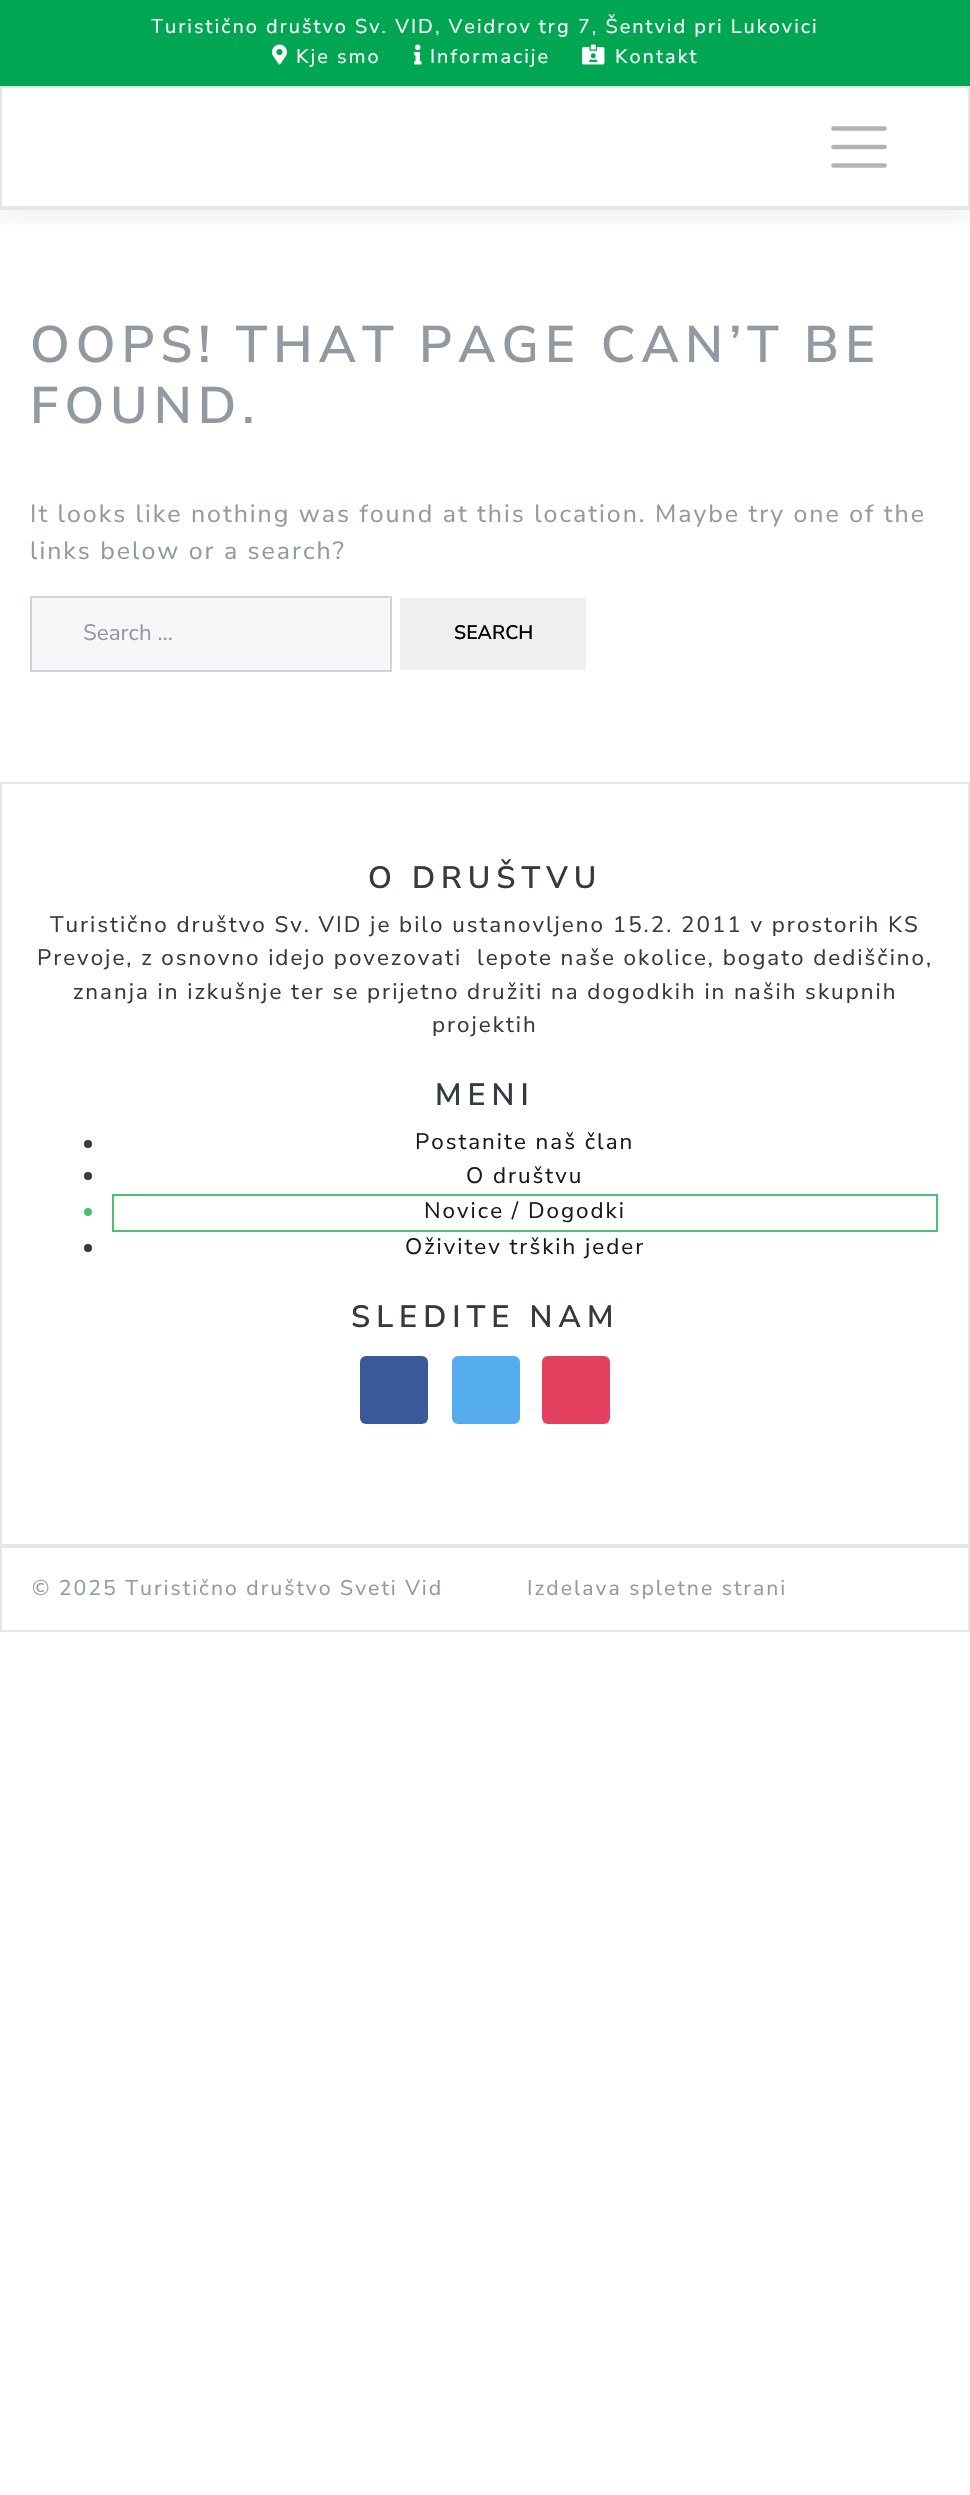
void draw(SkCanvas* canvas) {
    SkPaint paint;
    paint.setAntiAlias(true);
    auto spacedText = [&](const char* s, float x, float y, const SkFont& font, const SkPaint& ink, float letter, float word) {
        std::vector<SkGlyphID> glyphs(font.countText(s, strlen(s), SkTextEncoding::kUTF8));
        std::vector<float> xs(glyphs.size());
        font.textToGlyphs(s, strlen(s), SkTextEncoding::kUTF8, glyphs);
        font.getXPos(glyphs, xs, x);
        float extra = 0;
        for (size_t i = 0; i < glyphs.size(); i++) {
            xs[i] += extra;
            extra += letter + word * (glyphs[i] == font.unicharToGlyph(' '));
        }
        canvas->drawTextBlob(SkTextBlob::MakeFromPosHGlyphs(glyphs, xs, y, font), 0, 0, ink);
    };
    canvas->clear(0xFFFFFFFF);
    paint.setColor(0xFF00A651);
    canvas->drawRect(SkRect::MakeXYWH(0, 0, 970, 86), paint);
    SkFont font1(fontMgr->matchFamilyStyle("Nunito Sans", SkFontStyle::Normal()), 19.95f);
    font1.setSubpixel(true);
    paint.setColor(0xFFFFFFFF);
    spacedText("Turistično društvo Sv. VID, Veidrov trg 7, Šentvid pri Lukovici", 151, 33, font1, paint, 2, 0);
    canvas->drawImageRect(SkImages::DeferredFromEncodedData(SkData::MakeFromFileName("img1.png")), SkRect::MakeXYWH(272, 44, 15, 21), SkSamplingOptions());
    spacedText("Kje smo", 296, 63, font1, paint, 2, 0);
    canvas->drawImageRect(SkImages::DeferredFromEncodedData(SkData::MakeFromFileName("img2.png")), SkRect::MakeXYWH(414, 44, 8, 21), SkSamplingOptions());
    spacedText("Informacije", 430, 63, font1, paint, 2, 0);
    canvas->drawImageRect(SkImages::DeferredFromEncodedData(SkData::MakeFromFileName("img3.png")), SkRect::MakeXYWH(582, 44, 23, 21), SkSamplingOptions());
    spacedText("Kontakt", 615, 63, font1, paint, 2, 0);
    canvas->save();
    canvas->clipRect(SkRect::MakeXYWH(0, 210, 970, 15));
    paint.setColor(0x0D000000);
    paint.setMaskFilter(SkMaskFilter::MakeBlur(kNormal_SkBlurStyle, 13));
    canvas->drawRect(SkRect::MakeXYWH(0, 98, 970, 124), paint);
    paint.setMaskFilter(nullptr);
    canvas->restore();
    paint.setColor(0xFFE6E6E6);
    canvas->drawRect(SkRect::MakeXYWH(2, 206, 966, 2), paint);
    paint.setStyle(SkPaint::kStroke_Style);
    paint.setStrokeWidth(2);
    canvas->drawRect(SkRect::MakeXYWH(1, 87, 968, 122), paint);
    paint.setStrokeWidth(4.7f);
    paint.setStrokeCap(SkPaint::kRound_Cap);
    paint.setColor(0xFFB3B3B3);
    canvas->drawPath(SkPathBuilder().moveTo(833.5f, 128.5f).lineTo(884.5f, 128.5f).moveTo(833.5f, 147).lineTo(884.5f, 147).moveTo(833.5f, 165.5f).lineTo(884.5f, 165.5f).detach(), paint);
    SkFont font2(fontMgr->matchFamilyStyle("Nunito Sans", SkFontStyle(600, SkFontStyle::kNormal_Width, SkFontStyle::kUpright_Slant)), 51.25f);
    font2.setSubpixel(true);
    paint.setStyle(SkPaint::kFill_Style);
    paint.setColor(0xFF919AA1);
    spacedText("OOPS! THAT PAGE CAN’T BE", 30, 362, font2, paint, 6, 0);
    spacedText("FOUND.", 30, 423, font2, paint, 6, 0);
    SkFont font3(fontMgr->matchFamilyStyle("Nunito Sans", SkFontStyle::Normal()), 24.95f);
    font3.setSubpixel(true);
    spacedText("It looks like nothing was found at this location. Maybe try one of the", 30, 522, font3, paint, 2, 0);
    spacedText("links below or a search?", 30, 559, font3, paint, 2, 0);
    paint.setColor(0xFFF7F7F9);
    canvas->drawRect(SkRect::MakeXYWH(31, 597, 360, 74), paint);
    paint.setStyle(SkPaint::kStroke_Style);
    paint.setStrokeWidth(2);
    paint.setStrokeCap(SkPaint::kButt_Cap);
    paint.setColor(0xFFCED4DA);
    canvas->drawRect(SkRect::MakeXYWH(31, 597, 360, 74), paint);
    SkFont font4(fontMgr->matchFamilyStyle("Nunito Sans", SkFontStyle::Normal()), 22.4f);
    font4.setSubpixel(true);
    paint.setStyle(SkPaint::kFill_Style);
    paint.setColor(0xFF919AA1);
    canvas->drawString("Search …", 83, 640, font4, paint);
    paint.setColor(0xFFEFEFEF);
    canvas->drawRect(SkRect::MakeXYWH(400, 598, 186, 72), paint);
    SkFont font5(fontMgr->matchFamilyStyle("Nunito Sans", SkFontStyle(600, SkFontStyle::kNormal_Width, SkFontStyle::kUpright_Slant)), 19.5f);
    font5.setSubpixel(true);
    paint.setColor(0xFF000000);
    canvas->drawString("SEARCH", 454, 639, font5, paint);
    paint.setStyle(SkPaint::kStroke_Style);
    paint.setColor(0xFFE6E6E6);
    canvas->drawRect(SkRect::MakeXYWH(1, 783, 968, 762), paint);
    SkFont font6(fontMgr->matchFamilyStyle("Nunito Sans", SkFontStyle(600, SkFontStyle::kNormal_Width, SkFontStyle::kUpright_Slant)), 30.75f);
    font6.setSubpixel(true);
    paint.setStyle(SkPaint::kFill_Style);
    paint.setColor(0xFF343A40);
    spacedText("O DRUŠTVU", 368, 888, font6, paint, 6, 0);
    spacedText("Turistično društvo Sv. VID je bilo ustanovljeno 15.2. 2011 v prostorih KS", 50, 932, font4, paint, 2, 0);
    spacedText("Prevoje, z osnovno idejo povezovati", 37, 965, font4, paint, 2, 0);
    spacedText("lepote naše okolice, bogato dediščino,", 477, 965, font4, paint, 2, 0);
    spacedText("znanja in izkušnje ter se prijetno", 73, 999, font4, paint, 2, 0);
    spacedText("družiti na dogodkih in naših skupnih", 467, 999, font4, paint, 2, 0);
    spacedText("projektih", 432, 1032, font4, paint, 2, 0);
    spacedText("MENI", 435, 1105, font6, paint, 6, 0);
    canvas->drawCircle(88, 1144, 4, paint);
    paint.setColor(0xFF1A1A1A);
    spacedText("Postanite naš član", 415, 1149, font4, paint, 2, 0);
    paint.setColor(0xFF343A40);
    canvas->drawCircle(88, 1176, 4, paint);
    paint.setColor(0xFF1A1A1A);
    spacedText("O društvu", 466, 1183, font4, paint, 2, 0);
    paint.setStyle(SkPaint::kStroke_Style);
    paint.setColor(0xFF4BBF73);
    canvas->drawRect(SkRect::MakeXYWH(113, 1195, 824, 36), paint);
    paint.setStyle(SkPaint::kFill_Style);
    canvas->drawCircle(88, 1212, 4, paint);
    paint.setColor(0xFF1A1A1A);
    spacedText("Novice / Dogodki", 424, 1218, font4, paint, 2, 0);
    paint.setColor(0xFF343A40);
    canvas->drawCircle(88, 1248, 4, paint);
    paint.setColor(0xFF1A1A1A);
    spacedText("Oživitev trških jeder", 405, 1254, font4, paint, 2, 0);
    paint.setColor(0xFF343A40);
    spacedText("SLEDITE NAM", 351, 1327, font6, paint, 6, 0);
    paint.setColor(0xFF3B5998);
    canvas->drawRoundRect(SkRect::MakeXYWH(360, 1356, 68, 68), 6, 6, paint);
    paint.setColor(0xFF55ACEE);
    canvas->drawRoundRect(SkRect::MakeXYWH(452, 1356, 68, 68), 6, 6, paint);
    paint.setColor(0xFFE4405F);
    canvas->drawRoundRect(SkRect::MakeXYWH(542, 1356, 68, 68), 6, 6, paint);
    paint.setStyle(SkPaint::kStroke_Style);
    paint.setColor(0xFFE6E6E6);
    canvas->drawRect(SkRect::MakeXYWH(1, 1547, 968, 84), paint);
    SkFont font7(fontMgr->matchFamilyStyle("Nunito Sans", SkFontStyle::Normal()), 21.25f);
    font7.setSubpixel(true);
    paint.setStyle(SkPaint::kFill_Style);
    paint.setColor(0xFF919AA1);
    spacedText("© 2025 Turistično društvo Sveti Vid", 32, 1595, font7, paint, 2, 0);
    spacedText("Izdelava spletne strani", 527, 1595, font7, paint, 2, 0);
}
